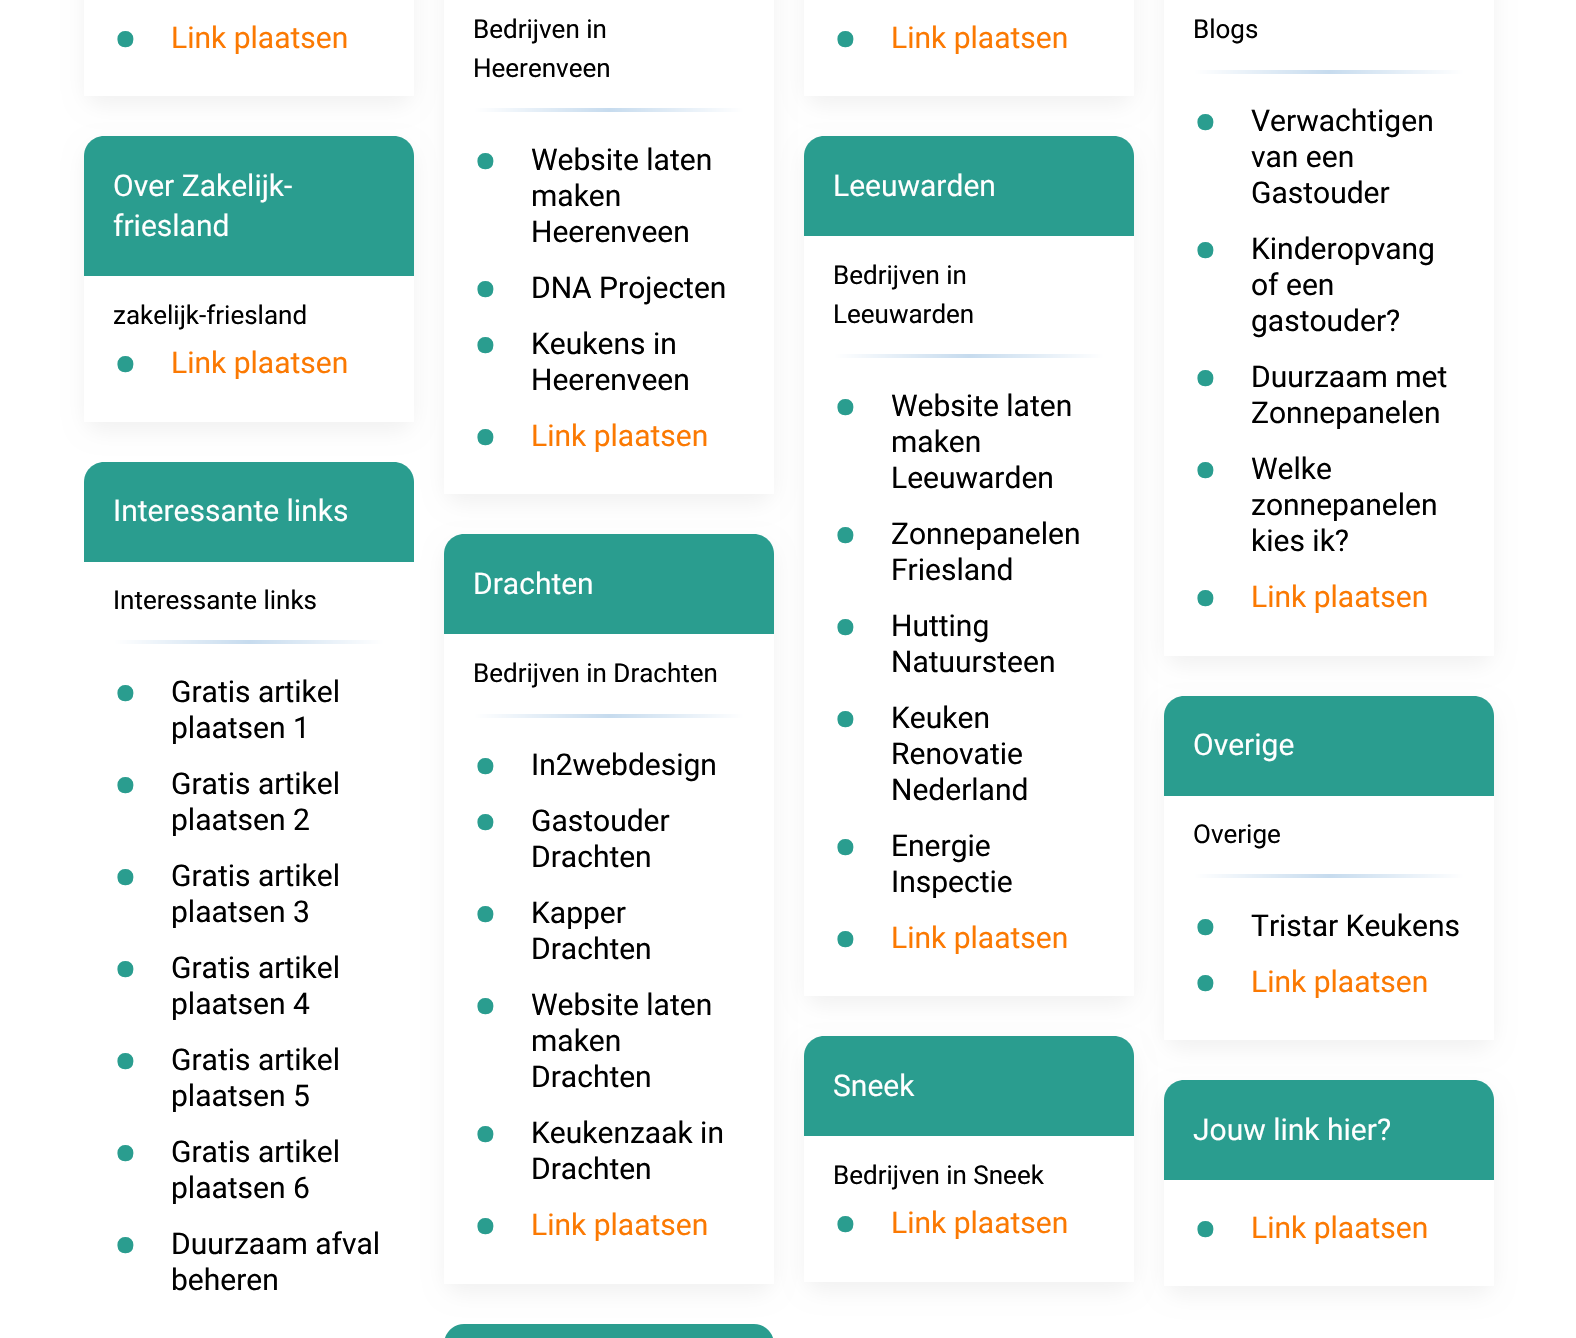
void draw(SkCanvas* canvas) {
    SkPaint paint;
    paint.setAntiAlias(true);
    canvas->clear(0xFFFFFFFF);
    canvas->save();
    canvas->clipPath(SkPathBuilder(SkPathFillType::kEvenOdd).moveTo(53, 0).lineTo(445, 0).lineTo(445, 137).lineTo(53, 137).close().moveTo(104, -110).lineTo(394, -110).cubicTo(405, -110, 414, -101, 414, -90).lineTo(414, 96).lineTo(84, 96).lineTo(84, -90).cubicTo(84, -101, 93, -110, 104, -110).close().detach(), true);
    paint.setColor(0x0D000000);
    paint.setMaskFilter(SkMaskFilter::MakeBlur(kNormal_SkBlurStyle, 10));
    canvas->drawRoundRect(SkRect::MakeXYWH(84, -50, 330, 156), 20, 20, paint);
    paint.setMaskFilter(nullptr);
    canvas->restore();
    SkFont font1(fontMgr->matchFamilyStyle("Roboto", SkFontStyle::Bold()), 68);
    font1.setSubpixel(true);
    paint.setColor(0xFF2A9D8F);
    canvas->drawString("•", 113, 64, font1, paint);
    SkFont font2(fontMgr->matchFamilyStyle("Roboto", SkFontStyle::Normal()), 30);
    font2.setSubpixel(true);
    paint.setColor(0xFFFB7902);
    canvas->drawString("Link plaatsen", 171, 48, font2, paint);
    canvas->save();
    canvas->clipPath(SkPathBuilder(SkPathFillType::kEvenOdd).moveTo(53, 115).lineTo(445, 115).lineTo(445, 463).lineTo(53, 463).close().moveTo(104, 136).lineTo(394, 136).cubicTo(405, 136, 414, 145, 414, 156).lineTo(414, 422).lineTo(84, 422).lineTo(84, 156).cubicTo(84, 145, 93, 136, 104, 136).close().detach(), true);
    paint.setColor(0x0D000000);
    paint.setMaskFilter(SkMaskFilter::MakeBlur(kNormal_SkBlurStyle, 10));
    canvas->drawRoundRect(SkRect::MakeXYWH(84, 146, 330, 286), 20, 20, paint);
    paint.setMaskFilter(nullptr);
    canvas->restore();
    paint.setColor(0xFF2A9D8F);
    canvas->drawPath(SkPathBuilder().moveTo(104, 136).lineTo(394, 136).cubicTo(405, 136, 414, 145, 414, 156).lineTo(414, 276).lineTo(84, 276).lineTo(84, 156).cubicTo(84, 145, 93, 136, 104, 136).close().detach(), paint);
    paint.setColor(0xFFFFFFFF);
    canvas->drawString("Over Zakelijk-", 113, 196, font2, paint);
    canvas->drawString("friesland", 113, 236, font2, paint);
    SkFont font3(fontMgr->matchFamilyStyle("Roboto", SkFontStyle::Normal()), 26);
    font3.setSubpixel(true);
    paint.setColor(0xFF000000);
    canvas->drawString("zakelijk-friesland", 113, 324, font3, paint);
    paint.setColor(0xFF2A9D8F);
    canvas->drawString("•", 113, 389, font1, paint);
    paint.setColor(0xFFFB7902);
    canvas->drawString("Link plaatsen", 171, 373, font2, paint);
    paint.setColor(0xFF2A9D8F);
    canvas->drawPath(SkPathBuilder().moveTo(104, 462).lineTo(394, 462).cubicTo(405, 462, 414, 471, 414, 482).lineTo(414, 562).lineTo(84, 562).lineTo(84, 482).cubicTo(84, 471, 93, 462, 104, 462).close().detach(), paint);
    paint.setColor(0xFFFFFFFF);
    canvas->drawString("Interessante links", 113, 521, font2, paint);
    paint.setColor(0xFF000000);
    canvas->drawString("Interessante links", 113, 609, font3, paint);
    {
        const SkColor colors[] = {0xFFFFFFFF, 0xFFC6DBEE, 0xFFFFFFFF};
        const float stops[] = {0, 0.5f, 1};
        const SkPoint ends[] = {{114, 642}, {384, 642}};
        paint.setShader(SkGradientShader::MakeLinear(ends, colors, stops, 3, SkTileMode::kClamp));
        paint.setAlpha(255);
    }
    canvas->drawRect(SkRect::MakeXYWH(114, 640, 270, 4), paint);
    paint.setShader(nullptr);
    paint.setColor(0xFF2A9D8F);
    canvas->drawString("•", 113, 718, font1, paint);
    paint.setColor(0xFF000000);
    canvas->drawString("Gratis artikel", 171, 702, font2, paint);
    canvas->drawString("plaatsen 1", 171, 738, font2, paint);
    paint.setColor(0xFF2A9D8F);
    canvas->drawString("•", 113, 810, font1, paint);
    paint.setColor(0xFF000000);
    canvas->drawString("Gratis artikel", 171, 794, font2, paint);
    canvas->drawString("plaatsen 2", 171, 830, font2, paint);
    paint.setColor(0xFF2A9D8F);
    canvas->drawString("•", 113, 902, font1, paint);
    paint.setColor(0xFF000000);
    canvas->drawString("Gratis artikel", 171, 886, font2, paint);
    canvas->drawString("plaatsen 3", 171, 922, font2, paint);
    paint.setColor(0xFF2A9D8F);
    canvas->drawString("•", 113, 994, font1, paint);
    paint.setColor(0xFF000000);
    canvas->drawString("Gratis artikel", 171, 978, font2, paint);
    canvas->drawString("plaatsen 4", 171, 1014, font2, paint);
    paint.setColor(0xFF2A9D8F);
    canvas->drawString("•", 113, 1086, font1, paint);
    paint.setColor(0xFF000000);
    canvas->drawString("Gratis artikel", 171, 1070, font2, paint);
    canvas->drawString("plaatsen 5", 171, 1106, font2, paint);
    paint.setColor(0xFF2A9D8F);
    canvas->drawString("•", 113, 1178, font1, paint);
    paint.setColor(0xFF000000);
    canvas->drawString("Gratis artikel", 171, 1162, font2, paint);
    canvas->drawString("plaatsen 6", 171, 1198, font2, paint);
    paint.setColor(0xFF2A9D8F);
    canvas->drawString("•", 113, 1270, font1, paint);
    paint.setColor(0xFF000000);
    canvas->drawString("Duurzaam afval", 171, 1254, font2, paint);
    canvas->drawString("beheren", 171, 1290, font2, paint);
    canvas->save();
    canvas->clipPath(SkPathBuilder(SkPathFillType::kEvenOdd).moveTo(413, 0).lineTo(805, 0).lineTo(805, 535).lineTo(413, 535).close().moveTo(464, -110).lineTo(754, -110).cubicTo(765, -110, 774, -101, 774, -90).lineTo(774, 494).lineTo(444, 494).lineTo(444, -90).cubicTo(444, -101, 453, -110, 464, -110).close().detach(), true);
    paint.setColor(0x0D000000);
    paint.setMaskFilter(SkMaskFilter::MakeBlur(kNormal_SkBlurStyle, 10));
    canvas->drawRoundRect(SkRect::MakeXYWH(444, -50, 330, 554), 20, 20, paint);
    paint.setMaskFilter(nullptr);
    canvas->restore();
    paint.setColor(0xFF000000);
    canvas->drawString("Bedrijven in", 473, 38, font3, paint);
    canvas->drawString("Heerenveen", 473, 77, font3, paint);
    {
        const SkColor colors[] = {0xFFFFFFFF, 0xFFC6DBEE, 0xFFFFFFFF};
        const float stops[] = {0, 0.5f, 1};
        const SkPoint ends[] = {{474, 110}, {744, 110}};
        paint.setShader(SkGradientShader::MakeLinear(ends, colors, stops, 3, SkTileMode::kClamp));
        paint.setAlpha(255);
    }
    canvas->drawRect(SkRect::MakeXYWH(474, 108, 270, 4), paint);
    paint.setShader(nullptr);
    paint.setColor(0xFF2A9D8F);
    canvas->drawString("•", 473, 186, font1, paint);
    paint.setColor(0xFF000000);
    canvas->drawString("Website laten", 531, 170, font2, paint);
    canvas->drawString("maken", 531, 206, font2, paint);
    canvas->drawString("Heerenveen", 531, 242, font2, paint);
    paint.setColor(0xFF2A9D8F);
    canvas->drawString("•", 473, 314, font1, paint);
    paint.setColor(0xFF000000);
    canvas->drawString("DNA Projecten", 531, 298, font2, paint);
    paint.setColor(0xFF2A9D8F);
    canvas->drawString("•", 473, 370, font1, paint);
    paint.setColor(0xFF000000);
    canvas->drawString("Keukens in", 531, 354, font2, paint);
    canvas->drawString("Heerenveen", 531, 390, font2, paint);
    paint.setColor(0xFF2A9D8F);
    canvas->drawString("•", 473, 462, font1, paint);
    paint.setColor(0xFFFB7902);
    canvas->drawString("Link plaatsen", 531, 446, font2, paint);
    canvas->save();
    canvas->clipPath(SkPathBuilder(SkPathFillType::kEvenOdd).moveTo(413, 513).lineTo(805, 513).lineTo(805, 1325).lineTo(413, 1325).close().moveTo(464, 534).lineTo(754, 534).cubicTo(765, 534, 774, 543, 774, 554).lineTo(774, 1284).lineTo(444, 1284).lineTo(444, 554).cubicTo(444, 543, 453, 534, 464, 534).close().detach(), true);
    paint.setColor(0x0D000000);
    paint.setMaskFilter(SkMaskFilter::MakeBlur(kNormal_SkBlurStyle, 10));
    canvas->drawRoundRect(SkRect::MakeXYWH(444, 544, 330, 750), 20, 20, paint);
    paint.setMaskFilter(nullptr);
    canvas->restore();
    paint.setColor(0xFF2A9D8F);
    canvas->drawPath(SkPathBuilder().moveTo(464, 534).lineTo(754, 534).cubicTo(765, 534, 774, 543, 774, 554).lineTo(774, 634).lineTo(444, 634).lineTo(444, 554).cubicTo(444, 543, 453, 534, 464, 534).close().detach(), paint);
    paint.setColor(0xFFFFFFFF);
    canvas->drawString("Drachten", 473, 594, font2, paint);
    paint.setColor(0xFF000000);
    canvas->drawString("Bedrijven in Drachten", 473, 682, font3, paint);
    {
        const SkColor colors[] = {0xFFFFFFFF, 0xFFC6DBEE, 0xFFFFFFFF};
        const float stops[] = {0, 0.5f, 1};
        const SkPoint ends[] = {{474, 716}, {744, 716}};
        paint.setShader(SkGradientShader::MakeLinear(ends, colors, stops, 3, SkTileMode::kClamp));
        paint.setAlpha(255);
    }
    canvas->drawRect(SkRect::MakeXYWH(474, 714, 270, 4), paint);
    paint.setShader(nullptr);
    paint.setColor(0xFF2A9D8F);
    canvas->drawString("•", 473, 791, font1, paint);
    paint.setColor(0xFF000000);
    canvas->drawString("In2webdesign", 531, 775, font2, paint);
    paint.setColor(0xFF2A9D8F);
    canvas->drawString("•", 473, 847, font1, paint);
    paint.setColor(0xFF000000);
    canvas->drawString("Gastouder", 531, 831, font2, paint);
    canvas->drawString("Drachten", 531, 867, font2, paint);
    paint.setColor(0xFF2A9D8F);
    canvas->drawString("•", 473, 939, font1, paint);
    paint.setColor(0xFF000000);
    canvas->drawString("Kapper", 531, 923, font2, paint);
    canvas->drawString("Drachten", 531, 959, font2, paint);
    paint.setColor(0xFF2A9D8F);
    canvas->drawString("•", 473, 1031, font1, paint);
    paint.setColor(0xFF000000);
    canvas->drawString("Website laten", 531, 1015, font2, paint);
    canvas->drawString("maken", 531, 1051, font2, paint);
    canvas->drawString("Drachten", 531, 1087, font2, paint);
    paint.setColor(0xFF2A9D8F);
    canvas->drawString("•", 473, 1159, font1, paint);
    paint.setColor(0xFF000000);
    canvas->drawString("Keukenzaak in", 531, 1143, font2, paint);
    canvas->drawString("Drachten", 531, 1179, font2, paint);
    paint.setColor(0xFF2A9D8F);
    canvas->drawString("•", 473, 1251, font1, paint);
    paint.setColor(0xFFFB7902);
    canvas->drawString("Link plaatsen", 531, 1235, font2, paint);
    paint.setColor(0xFF2A9D8F);
    canvas->drawPath(SkPathBuilder().moveTo(464, 1324).lineTo(754, 1324).cubicTo(765, 1324, 774, 1333, 774, 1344).lineTo(774, 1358).lineTo(444, 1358).lineTo(444, 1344).cubicTo(444, 1333, 453, 1324, 464, 1324).close().detach(), paint);
    canvas->save();
    canvas->clipPath(SkPathBuilder(SkPathFillType::kEvenOdd).moveTo(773, 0).lineTo(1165, 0).lineTo(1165, 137).lineTo(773, 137).close().moveTo(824, -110).lineTo(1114, -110).cubicTo(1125, -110, 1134, -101, 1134, -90).lineTo(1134, 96).lineTo(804, 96).lineTo(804, -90).cubicTo(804, -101, 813, -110, 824, -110).close().detach(), true);
    paint.setColor(0x0D000000);
    paint.setMaskFilter(SkMaskFilter::MakeBlur(kNormal_SkBlurStyle, 10));
    canvas->drawRoundRect(SkRect::MakeXYWH(804, -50, 330, 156), 20, 20, paint);
    paint.setMaskFilter(nullptr);
    canvas->restore();
    paint.setColor(0xFF2A9D8F);
    canvas->drawString("•", 833, 64, font1, paint);
    paint.setColor(0xFFFB7902);
    canvas->drawString("Link plaatsen", 891, 48, font2, paint);
    canvas->save();
    canvas->clipPath(SkPathBuilder(SkPathFillType::kEvenOdd).moveTo(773, 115).lineTo(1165, 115).lineTo(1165, 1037).lineTo(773, 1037).close().moveTo(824, 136).lineTo(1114, 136).cubicTo(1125, 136, 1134, 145, 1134, 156).lineTo(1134, 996).lineTo(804, 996).lineTo(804, 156).cubicTo(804, 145, 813, 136, 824, 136).close().detach(), true);
    paint.setColor(0x0D000000);
    paint.setMaskFilter(SkMaskFilter::MakeBlur(kNormal_SkBlurStyle, 10));
    canvas->drawRoundRect(SkRect::MakeXYWH(804, 146, 330, 860), 20, 20, paint);
    paint.setMaskFilter(nullptr);
    canvas->restore();
    paint.setColor(0xFF2A9D8F);
    canvas->drawPath(SkPathBuilder().moveTo(824, 136).lineTo(1114, 136).cubicTo(1125, 136, 1134, 145, 1134, 156).lineTo(1134, 236).lineTo(804, 236).lineTo(804, 156).cubicTo(804, 145, 813, 136, 824, 136).close().detach(), paint);
    paint.setColor(0xFFFFFFFF);
    canvas->drawString("Leeuwarden", 833, 196, font2, paint);
    paint.setColor(0xFF000000);
    canvas->drawString("Bedrijven in", 833, 284, font3, paint);
    canvas->drawString("Leeuwarden", 833, 323, font3, paint);
    {
        const SkColor colors[] = {0xFFFFFFFF, 0xFFC6DBEE, 0xFFFFFFFF};
        const float stops[] = {0, 0.5f, 1};
        const SkPoint ends[] = {{834, 356}, {1104, 356}};
        paint.setShader(SkGradientShader::MakeLinear(ends, colors, stops, 3, SkTileMode::kClamp));
        paint.setAlpha(255);
    }
    canvas->drawRect(SkRect::MakeXYWH(834, 354, 270, 4), paint);
    paint.setShader(nullptr);
    paint.setColor(0xFF2A9D8F);
    canvas->drawString("•", 833, 432, font1, paint);
    paint.setColor(0xFF000000);
    canvas->drawString("Website laten", 891, 416, font2, paint);
    canvas->drawString("maken", 891, 452, font2, paint);
    canvas->drawString("Leeuwarden", 891, 488, font2, paint);
    paint.setColor(0xFF2A9D8F);
    canvas->drawString("•", 833, 560, font1, paint);
    paint.setColor(0xFF000000);
    canvas->drawString("Zonnepanelen", 891, 544, font2, paint);
    canvas->drawString("Friesland", 891, 580, font2, paint);
    paint.setColor(0xFF2A9D8F);
    canvas->drawString("•", 833, 652, font1, paint);
    paint.setColor(0xFF000000);
    canvas->drawString("Hutting", 891, 636, font2, paint);
    canvas->drawString("Natuursteen", 891, 672, font2, paint);
    paint.setColor(0xFF2A9D8F);
    canvas->drawString("•", 833, 744, font1, paint);
    paint.setColor(0xFF000000);
    canvas->drawString("Keuken", 891, 728, font2, paint);
    canvas->drawString("Renovatie", 891, 764, font2, paint);
    canvas->drawString("Nederland", 891, 800, font2, paint);
    paint.setColor(0xFF2A9D8F);
    canvas->drawString("•", 833, 872, font1, paint);
    paint.setColor(0xFF000000);
    canvas->drawString("Energie", 891, 856, font2, paint);
    canvas->drawString("Inspectie", 891, 892, font2, paint);
    paint.setColor(0xFF2A9D8F);
    canvas->drawString("•", 833, 964, font1, paint);
    paint.setColor(0xFFFB7902);
    canvas->drawString("Link plaatsen", 891, 948, font2, paint);
    canvas->save();
    canvas->clipPath(SkPathBuilder(SkPathFillType::kEvenOdd).moveTo(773, 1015).lineTo(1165, 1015).lineTo(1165, 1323).lineTo(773, 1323).close().moveTo(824, 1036).lineTo(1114, 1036).cubicTo(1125, 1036, 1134, 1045, 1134, 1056).lineTo(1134, 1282).lineTo(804, 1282).lineTo(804, 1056).cubicTo(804, 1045, 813, 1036, 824, 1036).close().detach(), true);
    paint.setColor(0x0D000000);
    paint.setMaskFilter(SkMaskFilter::MakeBlur(kNormal_SkBlurStyle, 10));
    canvas->drawRoundRect(SkRect::MakeXYWH(804, 1046, 330, 246), 20, 20, paint);
    paint.setMaskFilter(nullptr);
    canvas->restore();
    paint.setColor(0xFF2A9D8F);
    canvas->drawPath(SkPathBuilder().moveTo(824, 1036).lineTo(1114, 1036).cubicTo(1125, 1036, 1134, 1045, 1134, 1056).lineTo(1134, 1136).lineTo(804, 1136).lineTo(804, 1056).cubicTo(804, 1045, 813, 1036, 824, 1036).close().detach(), paint);
    paint.setColor(0xFFFFFFFF);
    canvas->drawString("Sneek", 833, 1096, font2, paint);
    paint.setColor(0xFF000000);
    canvas->drawString("Bedrijven in Sneek", 833, 1184, font3, paint);
    paint.setColor(0xFF2A9D8F);
    canvas->drawString("•", 833, 1249, font1, paint);
    paint.setColor(0xFFFB7902);
    canvas->drawString("Link plaatsen", 891, 1233, font2, paint);
    canvas->save();
    canvas->clipPath(SkPathBuilder(SkPathFillType::kEvenOdd).moveTo(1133, 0).lineTo(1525, 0).lineTo(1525, 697).lineTo(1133, 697).close().moveTo(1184, -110).lineTo(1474, -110).cubicTo(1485, -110, 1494, -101, 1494, -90).lineTo(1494, 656).lineTo(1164, 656).lineTo(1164, -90).cubicTo(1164, -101, 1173, -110, 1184, -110).close().detach(), true);
    paint.setColor(0x0D000000);
    paint.setMaskFilter(SkMaskFilter::MakeBlur(kNormal_SkBlurStyle, 10));
    canvas->drawRoundRect(SkRect::MakeXYWH(1164, -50, 330, 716), 20, 20, paint);
    paint.setMaskFilter(nullptr);
    canvas->restore();
    paint.setColor(0xFF000000);
    canvas->drawString("Blogs", 1193, 38, font3, paint);
    {
        const SkColor colors[] = {0xFFFFFFFF, 0xFFC6DBEE, 0xFFFFFFFF};
        const float stops[] = {0, 0.5f, 1};
        const SkPoint ends[] = {{1194, 72}, {1464, 72}};
        paint.setShader(SkGradientShader::MakeLinear(ends, colors, stops, 3, SkTileMode::kClamp));
        paint.setAlpha(255);
    }
    canvas->drawRect(SkRect::MakeXYWH(1194, 70, 270, 4), paint);
    paint.setShader(nullptr);
    paint.setColor(0xFF2A9D8F);
    canvas->drawString("•", 1193, 147, font1, paint);
    paint.setColor(0xFF000000);
    canvas->drawString("Verwachtigen", 1251, 131, font2, paint);
    canvas->drawString("van een", 1251, 167, font2, paint);
    canvas->drawString("Gastouder", 1251, 203, font2, paint);
    paint.setColor(0xFF2A9D8F);
    canvas->drawString("•", 1193, 275, font1, paint);
    paint.setColor(0xFF000000);
    canvas->drawString("Kinderopvang", 1251, 259, font2, paint);
    canvas->drawString("of een", 1251, 295, font2, paint);
    canvas->drawString("gastouder?", 1251, 331, font2, paint);
    paint.setColor(0xFF2A9D8F);
    canvas->drawString("•", 1193, 403, font1, paint);
    paint.setColor(0xFF000000);
    canvas->drawString("Duurzaam met", 1251, 387, font2, paint);
    canvas->drawString("Zonnepanelen", 1251, 423, font2, paint);
    paint.setColor(0xFF2A9D8F);
    canvas->drawString("•", 1193, 495, font1, paint);
    paint.setColor(0xFF000000);
    canvas->drawString("Welke", 1251, 479, font2, paint);
    canvas->drawString("zonnepanelen", 1251, 515, font2, paint);
    canvas->drawString("kies ik?", 1251, 551, font2, paint);
    paint.setColor(0xFF2A9D8F);
    canvas->drawString("•", 1193, 623, font1, paint);
    paint.setColor(0xFFFB7902);
    canvas->drawString("Link plaatsen", 1251, 607, font2, paint);
    canvas->save();
    canvas->clipPath(SkPathBuilder(SkPathFillType::kEvenOdd).moveTo(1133, 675).lineTo(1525, 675).lineTo(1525, 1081).lineTo(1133, 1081).close().moveTo(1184, 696).lineTo(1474, 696).cubicTo(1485, 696, 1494, 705, 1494, 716).lineTo(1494, 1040).lineTo(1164, 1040).lineTo(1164, 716).cubicTo(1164, 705, 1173, 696, 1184, 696).close().detach(), true);
    paint.setColor(0x0D000000);
    paint.setMaskFilter(SkMaskFilter::MakeBlur(kNormal_SkBlurStyle, 10));
    canvas->drawRoundRect(SkRect::MakeXYWH(1164, 706, 330, 344), 20, 20, paint);
    paint.setMaskFilter(nullptr);
    canvas->restore();
    paint.setColor(0xFF2A9D8F);
    canvas->drawPath(SkPathBuilder().moveTo(1184, 696).lineTo(1474, 696).cubicTo(1485, 696, 1494, 705, 1494, 716).lineTo(1494, 796).lineTo(1164, 796).lineTo(1164, 716).cubicTo(1164, 705, 1173, 696, 1184, 696).close().detach(), paint);
    paint.setColor(0xFFFFFFFF);
    canvas->drawString("Overige", 1193, 755, font2, paint);
    paint.setColor(0xFF000000);
    canvas->drawString("Overige", 1193, 843, font3, paint);
    {
        const SkColor colors[] = {0xFFFFFFFF, 0xFFC6DBEE, 0xFFFFFFFF};
        const float stops[] = {0, 0.5f, 1};
        const SkPoint ends[] = {{1194, 876}, {1464, 876}};
        paint.setShader(SkGradientShader::MakeLinear(ends, colors, stops, 3, SkTileMode::kClamp));
        paint.setAlpha(255);
    }
    canvas->drawRect(SkRect::MakeXYWH(1194, 874, 270, 4), paint);
    paint.setShader(nullptr);
    paint.setColor(0xFF2A9D8F);
    canvas->drawString("•", 1193, 952, font1, paint);
    paint.setColor(0xFF000000);
    canvas->drawString("Tristar Keukens", 1251, 936, font2, paint);
    paint.setColor(0xFF2A9D8F);
    canvas->drawString("•", 1193, 1008, font1, paint);
    paint.setColor(0xFFFB7902);
    canvas->drawString("Link plaatsen", 1251, 992, font2, paint);
    canvas->save();
    canvas->clipPath(SkPathBuilder(SkPathFillType::kEvenOdd).moveTo(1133, 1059).lineTo(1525, 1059).lineTo(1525, 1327).lineTo(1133, 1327).close().moveTo(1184, 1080).lineTo(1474, 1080).cubicTo(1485, 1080, 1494, 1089, 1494, 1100).lineTo(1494, 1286).lineTo(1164, 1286).lineTo(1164, 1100).cubicTo(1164, 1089, 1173, 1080, 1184, 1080).close().detach(), true);
    paint.setColor(0x0D000000);
    paint.setMaskFilter(SkMaskFilter::MakeBlur(kNormal_SkBlurStyle, 10));
    canvas->drawRoundRect(SkRect::MakeXYWH(1164, 1090, 330, 206), 20, 20, paint);
    paint.setMaskFilter(nullptr);
    canvas->restore();
    paint.setColor(0xFF2A9D8F);
    canvas->drawPath(SkPathBuilder().moveTo(1184, 1080).lineTo(1474, 1080).cubicTo(1485, 1080, 1494, 1089, 1494, 1100).lineTo(1494, 1180).lineTo(1164, 1180).lineTo(1164, 1100).cubicTo(1164, 1089, 1173, 1080, 1184, 1080).close().detach(), paint);
    paint.setColor(0xFFFFFFFF);
    canvas->drawString("Jouw link hier?", 1193, 1140, font2, paint);
    paint.setColor(0xFF2A9D8F);
    canvas->drawString("•", 1193, 1254, font1, paint);
    paint.setColor(0xFFFB7902);
    canvas->drawString("Link plaatsen", 1251, 1238, font2, paint);
}
